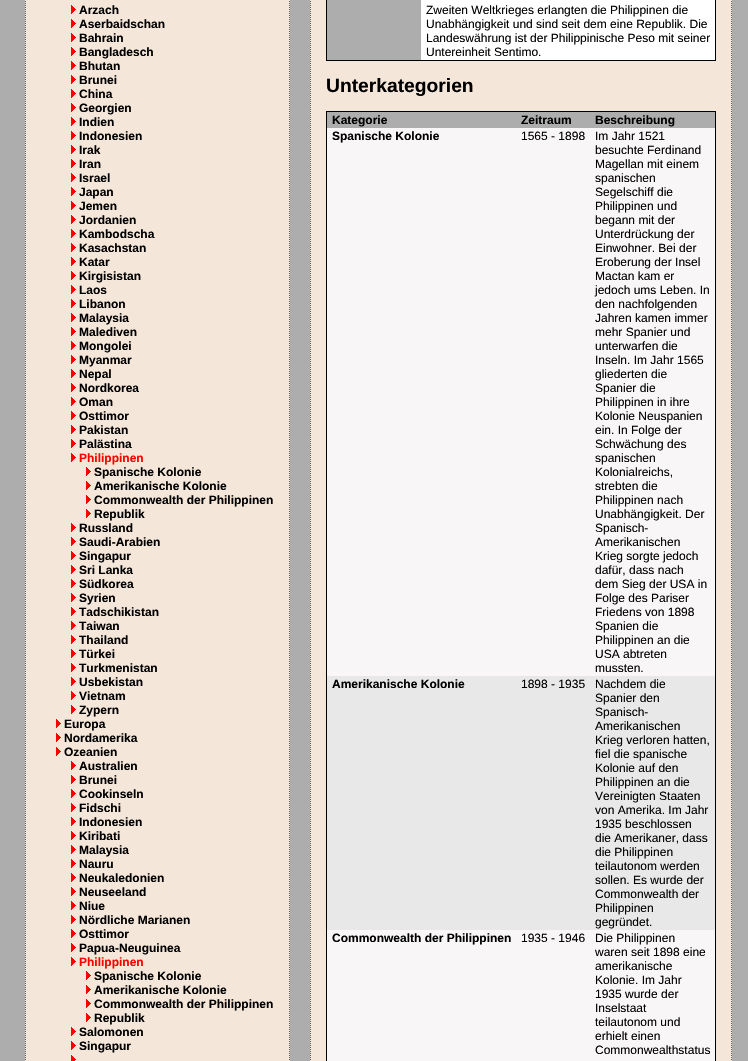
void draw(SkCanvas* canvas) {
    SkPaint paint;
    paint.setAntiAlias(true);
    canvas->clear(0xFFADADAD);
    paint.setColor(0xFFF4E6D9);
    canvas->drawRect(SkRect::MakeXYWH(25, 0, 265, 1061), paint);
    paint.setStyle(SkPaint::kStroke_Style);
    paint.setStrokeWidth(1);
    paint.setColor(0xFF5E5E5E);
    paint.setPathEffect(SkDashPathEffect::Make({{1, 1}}, 0));
    canvas->drawPath(SkPathBuilder().moveTo(289.5f, -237).lineTo(289.5f, 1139).detach(), paint);
    paint.setPathEffect(nullptr);
    paint.setPathEffect(SkDashPathEffect::Make({{1, 1}}, 0));
    canvas->drawPath(SkPathBuilder().moveTo(25.5f, -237).lineTo(25.5f, 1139).detach(), paint);
    paint.setPathEffect(nullptr);
    canvas->drawImageRect(SkImages::DeferredFromEncodedData(SkData::MakeFromFileName("img1.png")), SkRect::MakeXYWH(71, 5, 5, 9), SkSamplingOptions());
    SkFont font1(fontMgr->matchFamilyStyle("Liberation Sans", SkFontStyle::Bold()), 12);
    font1.setSubpixel(true);
    paint.setStyle(SkPaint::kFill_Style);
    paint.setColor(0xFF000000);
    canvas->drawString("Arzach", 79, 14, font1, paint);
    canvas->drawImageRect(SkImages::DeferredFromEncodedData(SkData::MakeFromFileName("img1.png")), SkRect::MakeXYWH(71, 19, 5, 9), SkSamplingOptions());
    canvas->drawString("Aserbaidschan", 79, 28, font1, paint);
    canvas->drawImageRect(SkImages::DeferredFromEncodedData(SkData::MakeFromFileName("img1.png")), SkRect::MakeXYWH(71, 33, 5, 9), SkSamplingOptions());
    canvas->drawString("Bahrain", 79, 42, font1, paint);
    canvas->drawImageRect(SkImages::DeferredFromEncodedData(SkData::MakeFromFileName("img1.png")), SkRect::MakeXYWH(71, 47, 5, 9), SkSamplingOptions());
    canvas->drawString("Bangladesch", 79, 56, font1, paint);
    canvas->drawImageRect(SkImages::DeferredFromEncodedData(SkData::MakeFromFileName("img1.png")), SkRect::MakeXYWH(71, 61, 5, 9), SkSamplingOptions());
    canvas->drawString("Bhutan", 79, 70, font1, paint);
    canvas->drawImageRect(SkImages::DeferredFromEncodedData(SkData::MakeFromFileName("img1.png")), SkRect::MakeXYWH(71, 75, 5, 9), SkSamplingOptions());
    canvas->drawString("Brunei", 79, 84, font1, paint);
    canvas->drawImageRect(SkImages::DeferredFromEncodedData(SkData::MakeFromFileName("img1.png")), SkRect::MakeXYWH(71, 89, 5, 9), SkSamplingOptions());
    canvas->drawString("China", 79, 98, font1, paint);
    canvas->drawImageRect(SkImages::DeferredFromEncodedData(SkData::MakeFromFileName("img1.png")), SkRect::MakeXYWH(71, 103, 5, 9), SkSamplingOptions());
    canvas->drawString("Georgien", 79, 112, font1, paint);
    canvas->drawImageRect(SkImages::DeferredFromEncodedData(SkData::MakeFromFileName("img1.png")), SkRect::MakeXYWH(71, 117, 5, 9), SkSamplingOptions());
    canvas->drawString("Indien", 79, 126, font1, paint);
    canvas->drawImageRect(SkImages::DeferredFromEncodedData(SkData::MakeFromFileName("img1.png")), SkRect::MakeXYWH(71, 131, 5, 9), SkSamplingOptions());
    canvas->drawString("Indonesien", 79, 140, font1, paint);
    canvas->drawImageRect(SkImages::DeferredFromEncodedData(SkData::MakeFromFileName("img1.png")), SkRect::MakeXYWH(71, 145, 5, 9), SkSamplingOptions());
    canvas->drawString("Irak", 79, 154, font1, paint);
    canvas->drawImageRect(SkImages::DeferredFromEncodedData(SkData::MakeFromFileName("img1.png")), SkRect::MakeXYWH(71, 159, 5, 9), SkSamplingOptions());
    canvas->drawString("Iran", 79, 168, font1, paint);
    canvas->drawImageRect(SkImages::DeferredFromEncodedData(SkData::MakeFromFileName("img1.png")), SkRect::MakeXYWH(71, 173, 5, 9), SkSamplingOptions());
    canvas->drawString("Israel", 79, 182, font1, paint);
    canvas->drawImageRect(SkImages::DeferredFromEncodedData(SkData::MakeFromFileName("img1.png")), SkRect::MakeXYWH(71, 187, 5, 9), SkSamplingOptions());
    canvas->drawString("Japan", 79, 196, font1, paint);
    canvas->drawImageRect(SkImages::DeferredFromEncodedData(SkData::MakeFromFileName("img1.png")), SkRect::MakeXYWH(71, 201, 5, 9), SkSamplingOptions());
    canvas->drawString("Jemen", 79, 210, font1, paint);
    canvas->drawImageRect(SkImages::DeferredFromEncodedData(SkData::MakeFromFileName("img1.png")), SkRect::MakeXYWH(71, 215, 5, 9), SkSamplingOptions());
    canvas->drawString("Jordanien", 79, 224, font1, paint);
    canvas->drawImageRect(SkImages::DeferredFromEncodedData(SkData::MakeFromFileName("img1.png")), SkRect::MakeXYWH(71, 229, 5, 9), SkSamplingOptions());
    canvas->drawString("Kambodscha", 79, 238, font1, paint);
    canvas->drawImageRect(SkImages::DeferredFromEncodedData(SkData::MakeFromFileName("img1.png")), SkRect::MakeXYWH(71, 243, 5, 9), SkSamplingOptions());
    canvas->drawString("Kasachstan", 79, 252, font1, paint);
    canvas->drawImageRect(SkImages::DeferredFromEncodedData(SkData::MakeFromFileName("img1.png")), SkRect::MakeXYWH(71, 257, 5, 9), SkSamplingOptions());
    canvas->drawString("Katar", 79, 266, font1, paint);
    canvas->drawImageRect(SkImages::DeferredFromEncodedData(SkData::MakeFromFileName("img1.png")), SkRect::MakeXYWH(71, 271, 5, 9), SkSamplingOptions());
    canvas->drawString("Kirgisistan", 79, 280, font1, paint);
    canvas->drawImageRect(SkImages::DeferredFromEncodedData(SkData::MakeFromFileName("img1.png")), SkRect::MakeXYWH(71, 285, 5, 9), SkSamplingOptions());
    canvas->drawString("Laos", 79, 294, font1, paint);
    canvas->drawImageRect(SkImages::DeferredFromEncodedData(SkData::MakeFromFileName("img1.png")), SkRect::MakeXYWH(71, 299, 5, 9), SkSamplingOptions());
    canvas->drawString("Libanon", 79, 308, font1, paint);
    canvas->drawImageRect(SkImages::DeferredFromEncodedData(SkData::MakeFromFileName("img1.png")), SkRect::MakeXYWH(71, 313, 5, 9), SkSamplingOptions());
    canvas->drawString("Malaysia", 79, 322, font1, paint);
    canvas->drawImageRect(SkImages::DeferredFromEncodedData(SkData::MakeFromFileName("img1.png")), SkRect::MakeXYWH(71, 327, 5, 9), SkSamplingOptions());
    canvas->drawString("Malediven", 79, 336, font1, paint);
    canvas->drawImageRect(SkImages::DeferredFromEncodedData(SkData::MakeFromFileName("img1.png")), SkRect::MakeXYWH(71, 341, 5, 9), SkSamplingOptions());
    canvas->drawString("Mongolei", 79, 350, font1, paint);
    canvas->drawImageRect(SkImages::DeferredFromEncodedData(SkData::MakeFromFileName("img1.png")), SkRect::MakeXYWH(71, 355, 5, 9), SkSamplingOptions());
    canvas->drawString("Myanmar", 79, 364, font1, paint);
    canvas->drawImageRect(SkImages::DeferredFromEncodedData(SkData::MakeFromFileName("img1.png")), SkRect::MakeXYWH(71, 369, 5, 9), SkSamplingOptions());
    canvas->drawString("Nepal", 79, 378, font1, paint);
    canvas->drawImageRect(SkImages::DeferredFromEncodedData(SkData::MakeFromFileName("img1.png")), SkRect::MakeXYWH(71, 383, 5, 9), SkSamplingOptions());
    canvas->drawString("Nordkorea", 79, 392, font1, paint);
    canvas->drawImageRect(SkImages::DeferredFromEncodedData(SkData::MakeFromFileName("img1.png")), SkRect::MakeXYWH(71, 397, 5, 9), SkSamplingOptions());
    canvas->drawString("Oman", 79, 406, font1, paint);
    canvas->drawImageRect(SkImages::DeferredFromEncodedData(SkData::MakeFromFileName("img1.png")), SkRect::MakeXYWH(71, 411, 5, 9), SkSamplingOptions());
    canvas->drawString("Osttimor", 79, 420, font1, paint);
    canvas->drawImageRect(SkImages::DeferredFromEncodedData(SkData::MakeFromFileName("img1.png")), SkRect::MakeXYWH(71, 425, 5, 9), SkSamplingOptions());
    canvas->drawString("Pakistan", 79, 434, font1, paint);
    canvas->drawImageRect(SkImages::DeferredFromEncodedData(SkData::MakeFromFileName("img1.png")), SkRect::MakeXYWH(71, 439, 5, 9), SkSamplingOptions());
    canvas->drawString("Palästina", 79, 448, font1, paint);
    canvas->drawImageRect(SkImages::DeferredFromEncodedData(SkData::MakeFromFileName("img1.png")), SkRect::MakeXYWH(71, 453, 5, 9), SkSamplingOptions());
    paint.setColor(0xFFFF0000);
    canvas->drawString("Philippinen", 79, 462, font1, paint);
    canvas->drawImageRect(SkImages::DeferredFromEncodedData(SkData::MakeFromFileName("img1.png")), SkRect::MakeXYWH(86, 467, 5, 9), SkSamplingOptions());
    paint.setColor(0xFF000000);
    canvas->drawString("Spanische Kolonie", 94, 476, font1, paint);
    canvas->drawImageRect(SkImages::DeferredFromEncodedData(SkData::MakeFromFileName("img1.png")), SkRect::MakeXYWH(86, 481, 5, 9), SkSamplingOptions());
    canvas->drawString("Amerikanische Kolonie", 94, 490, font1, paint);
    canvas->drawImageRect(SkImages::DeferredFromEncodedData(SkData::MakeFromFileName("img1.png")), SkRect::MakeXYWH(86, 495, 5, 9), SkSamplingOptions());
    canvas->drawString("Commonwealth der Philippinen", 94, 504, font1, paint);
    canvas->drawImageRect(SkImages::DeferredFromEncodedData(SkData::MakeFromFileName("img1.png")), SkRect::MakeXYWH(86, 509, 5, 9), SkSamplingOptions());
    canvas->drawString("Republik", 94, 518, font1, paint);
    canvas->drawImageRect(SkImages::DeferredFromEncodedData(SkData::MakeFromFileName("img1.png")), SkRect::MakeXYWH(71, 523, 5, 9), SkSamplingOptions());
    canvas->drawString("Russland", 79, 532, font1, paint);
    canvas->drawImageRect(SkImages::DeferredFromEncodedData(SkData::MakeFromFileName("img1.png")), SkRect::MakeXYWH(71, 537, 5, 9), SkSamplingOptions());
    canvas->drawString("Saudi-Arabien", 79, 546, font1, paint);
    canvas->drawImageRect(SkImages::DeferredFromEncodedData(SkData::MakeFromFileName("img1.png")), SkRect::MakeXYWH(71, 551, 5, 9), SkSamplingOptions());
    canvas->drawString("Singapur", 79, 560, font1, paint);
    canvas->drawImageRect(SkImages::DeferredFromEncodedData(SkData::MakeFromFileName("img1.png")), SkRect::MakeXYWH(71, 565, 5, 9), SkSamplingOptions());
    canvas->drawString("Sri Lanka", 79, 574, font1, paint);
    canvas->drawImageRect(SkImages::DeferredFromEncodedData(SkData::MakeFromFileName("img1.png")), SkRect::MakeXYWH(71, 579, 5, 9), SkSamplingOptions());
    canvas->drawString("Südkorea", 79, 588, font1, paint);
    canvas->drawImageRect(SkImages::DeferredFromEncodedData(SkData::MakeFromFileName("img1.png")), SkRect::MakeXYWH(71, 593, 5, 9), SkSamplingOptions());
    canvas->drawString("Syrien", 79, 602, font1, paint);
    canvas->drawImageRect(SkImages::DeferredFromEncodedData(SkData::MakeFromFileName("img1.png")), SkRect::MakeXYWH(71, 607, 5, 9), SkSamplingOptions());
    canvas->drawString("Tadschikistan", 79, 616, font1, paint);
    canvas->drawImageRect(SkImages::DeferredFromEncodedData(SkData::MakeFromFileName("img1.png")), SkRect::MakeXYWH(71, 621, 5, 9), SkSamplingOptions());
    canvas->drawString("Taiwan", 79, 630, font1, paint);
    canvas->drawImageRect(SkImages::DeferredFromEncodedData(SkData::MakeFromFileName("img1.png")), SkRect::MakeXYWH(71, 635, 5, 9), SkSamplingOptions());
    canvas->drawString("Thailand", 79, 644, font1, paint);
    canvas->drawImageRect(SkImages::DeferredFromEncodedData(SkData::MakeFromFileName("img1.png")), SkRect::MakeXYWH(71, 649, 5, 9), SkSamplingOptions());
    canvas->drawString("Türkei", 79, 658, font1, paint);
    canvas->drawImageRect(SkImages::DeferredFromEncodedData(SkData::MakeFromFileName("img1.png")), SkRect::MakeXYWH(71, 663, 5, 9), SkSamplingOptions());
    canvas->drawString("Turkmenistan", 79, 672, font1, paint);
    canvas->drawImageRect(SkImages::DeferredFromEncodedData(SkData::MakeFromFileName("img1.png")), SkRect::MakeXYWH(71, 677, 5, 9), SkSamplingOptions());
    canvas->drawString("Usbekistan", 79, 686, font1, paint);
    canvas->drawImageRect(SkImages::DeferredFromEncodedData(SkData::MakeFromFileName("img1.png")), SkRect::MakeXYWH(71, 691, 5, 9), SkSamplingOptions());
    canvas->drawString("Vietnam", 79, 700, font1, paint);
    canvas->drawImageRect(SkImages::DeferredFromEncodedData(SkData::MakeFromFileName("img1.png")), SkRect::MakeXYWH(71, 705, 5, 9), SkSamplingOptions());
    canvas->drawString("Zypern", 79, 714, font1, paint);
    canvas->drawImageRect(SkImages::DeferredFromEncodedData(SkData::MakeFromFileName("img1.png")), SkRect::MakeXYWH(56, 719, 5, 9), SkSamplingOptions());
    canvas->drawString("Europa", 64, 728, font1, paint);
    canvas->drawImageRect(SkImages::DeferredFromEncodedData(SkData::MakeFromFileName("img1.png")), SkRect::MakeXYWH(56, 733, 5, 9), SkSamplingOptions());
    canvas->drawString("Nordamerika", 64, 742, font1, paint);
    canvas->drawImageRect(SkImages::DeferredFromEncodedData(SkData::MakeFromFileName("img1.png")), SkRect::MakeXYWH(56, 747, 5, 9), SkSamplingOptions());
    canvas->drawString("Ozeanien", 64, 756, font1, paint);
    canvas->drawImageRect(SkImages::DeferredFromEncodedData(SkData::MakeFromFileName("img1.png")), SkRect::MakeXYWH(71, 761, 5, 9), SkSamplingOptions());
    canvas->drawString("Australien", 79, 770, font1, paint);
    canvas->drawImageRect(SkImages::DeferredFromEncodedData(SkData::MakeFromFileName("img1.png")), SkRect::MakeXYWH(71, 775, 5, 9), SkSamplingOptions());
    canvas->drawString("Brunei", 79, 784, font1, paint);
    canvas->drawImageRect(SkImages::DeferredFromEncodedData(SkData::MakeFromFileName("img1.png")), SkRect::MakeXYWH(71, 789, 5, 9), SkSamplingOptions());
    canvas->drawString("Cookinseln", 79, 798, font1, paint);
    canvas->drawImageRect(SkImages::DeferredFromEncodedData(SkData::MakeFromFileName("img1.png")), SkRect::MakeXYWH(71, 803, 5, 9), SkSamplingOptions());
    canvas->drawString("Fidschi", 79, 812, font1, paint);
    canvas->drawImageRect(SkImages::DeferredFromEncodedData(SkData::MakeFromFileName("img1.png")), SkRect::MakeXYWH(71, 817, 5, 9), SkSamplingOptions());
    canvas->drawString("Indonesien", 79, 826, font1, paint);
    canvas->drawImageRect(SkImages::DeferredFromEncodedData(SkData::MakeFromFileName("img1.png")), SkRect::MakeXYWH(71, 831, 5, 9), SkSamplingOptions());
    canvas->drawString("Kiribati", 79, 840, font1, paint);
    canvas->drawImageRect(SkImages::DeferredFromEncodedData(SkData::MakeFromFileName("img1.png")), SkRect::MakeXYWH(71, 845, 5, 9), SkSamplingOptions());
    canvas->drawString("Malaysia", 79, 854, font1, paint);
    canvas->drawImageRect(SkImages::DeferredFromEncodedData(SkData::MakeFromFileName("img1.png")), SkRect::MakeXYWH(71, 859, 5, 9), SkSamplingOptions());
    canvas->drawString("Nauru", 79, 868, font1, paint);
    canvas->drawImageRect(SkImages::DeferredFromEncodedData(SkData::MakeFromFileName("img1.png")), SkRect::MakeXYWH(71, 873, 5, 9), SkSamplingOptions());
    canvas->drawString("Neukaledonien", 79, 882, font1, paint);
    canvas->drawImageRect(SkImages::DeferredFromEncodedData(SkData::MakeFromFileName("img1.png")), SkRect::MakeXYWH(71, 887, 5, 9), SkSamplingOptions());
    canvas->drawString("Neuseeland", 79, 896, font1, paint);
    canvas->drawImageRect(SkImages::DeferredFromEncodedData(SkData::MakeFromFileName("img1.png")), SkRect::MakeXYWH(71, 901, 5, 9), SkSamplingOptions());
    canvas->drawString("Niue", 79, 910, font1, paint);
    canvas->drawImageRect(SkImages::DeferredFromEncodedData(SkData::MakeFromFileName("img1.png")), SkRect::MakeXYWH(71, 915, 5, 9), SkSamplingOptions());
    canvas->drawString("Nördliche Marianen", 79, 924, font1, paint);
    canvas->drawImageRect(SkImages::DeferredFromEncodedData(SkData::MakeFromFileName("img1.png")), SkRect::MakeXYWH(71, 929, 5, 9), SkSamplingOptions());
    canvas->drawString("Osttimor", 79, 938, font1, paint);
    canvas->drawImageRect(SkImages::DeferredFromEncodedData(SkData::MakeFromFileName("img1.png")), SkRect::MakeXYWH(71, 943, 5, 9), SkSamplingOptions());
    canvas->drawString("Papua-Neuguinea", 79, 952, font1, paint);
    canvas->drawImageRect(SkImages::DeferredFromEncodedData(SkData::MakeFromFileName("img1.png")), SkRect::MakeXYWH(71, 957, 5, 9), SkSamplingOptions());
    paint.setColor(0xFFFF0000);
    canvas->drawString("Philippinen", 79, 966, font1, paint);
    canvas->drawImageRect(SkImages::DeferredFromEncodedData(SkData::MakeFromFileName("img1.png")), SkRect::MakeXYWH(86, 971, 5, 9), SkSamplingOptions());
    paint.setColor(0xFF000000);
    canvas->drawString("Spanische Kolonie", 94, 980, font1, paint);
    canvas->drawImageRect(SkImages::DeferredFromEncodedData(SkData::MakeFromFileName("img1.png")), SkRect::MakeXYWH(86, 985, 5, 9), SkSamplingOptions());
    canvas->drawString("Amerikanische Kolonie", 94, 994, font1, paint);
    canvas->drawImageRect(SkImages::DeferredFromEncodedData(SkData::MakeFromFileName("img1.png")), SkRect::MakeXYWH(86, 999, 5, 9), SkSamplingOptions());
    canvas->drawString("Commonwealth der Philippinen", 94, 1008, font1, paint);
    canvas->drawImageRect(SkImages::DeferredFromEncodedData(SkData::MakeFromFileName("img1.png")), SkRect::MakeXYWH(86, 1013, 5, 9), SkSamplingOptions());
    canvas->drawString("Republik", 94, 1022, font1, paint);
    canvas->drawImageRect(SkImages::DeferredFromEncodedData(SkData::MakeFromFileName("img1.png")), SkRect::MakeXYWH(71, 1027, 5, 9), SkSamplingOptions());
    canvas->drawString("Salomonen", 79, 1036, font1, paint);
    canvas->drawImageRect(SkImages::DeferredFromEncodedData(SkData::MakeFromFileName("img1.png")), SkRect::MakeXYWH(71, 1041, 5, 9), SkSamplingOptions());
    canvas->drawString("Singapur", 79, 1050, font1, paint);
    canvas->drawImageRect(SkImages::DeferredFromEncodedData(SkData::MakeFromFileName("img2.png")), SkRect::MakeXYWH(71, 1055, 5, 6), SkSamplingOptions());
    paint.setColor(0xFFF4E6D9);
    canvas->drawRect(SkRect::MakeXYWH(310, 0, 422, 1061), paint);
    paint.setStyle(SkPaint::kStroke_Style);
    paint.setColor(0xFF5E5E5E);
    paint.setPathEffect(SkDashPathEffect::Make({{1, 1}}, 0));
    canvas->drawPath(SkPathBuilder().moveTo(731.5f, -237).lineTo(731.5f, 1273).detach(), paint);
    paint.setPathEffect(nullptr);
    paint.setPathEffect(SkDashPathEffect::Make({{1, 1}}, 0));
    canvas->drawPath(SkPathBuilder().moveTo(310.5f, -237).lineTo(310.5f, 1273).detach(), paint);
    paint.setPathEffect(nullptr);
    paint.setStyle(SkPaint::kFill_Style);
    paint.setColor(0xFFADADAD);
    canvas->drawRect(SkRect::MakeXYWH(327, 0, 94, 60), paint);
    paint.setStyle(SkPaint::kStroke_Style);
    paint.setColor(0xFF000000);
    canvas->drawRect(SkRect::MakeXYWH(326.5f, -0.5f, 389, 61), paint);
    paint.setStyle(SkPaint::kFill_Style);
    paint.setColor(0xFFFFFFFF);
    canvas->drawRect(SkRect::MakeXYWH(421, 0, 294, 60), paint);
    SkFont font2(fontMgr->matchFamilyStyle("Liberation Sans", SkFontStyle::Normal()), 12);
    font2.setSubpixel(true);
    paint.setColor(0xFF000000);
    canvas->drawString("Zweiten Weltkrieges erlangten die Philippinen die", 426, 14, font2, paint);
    canvas->drawString("Unabhängigkeit und sind seit dem eine Republik. Die", 426, 28, font2, paint);
    canvas->drawString("Landeswährung ist der Philippinische Peso mit seiner", 426, 42, font2, paint);
    canvas->drawString("Untereinheit Sentimo.", 426, 56, font2, paint);
    SkFont font3(fontMgr->matchFamilyStyle("Liberation Sans", SkFontStyle::Bold()), 19.25f);
    font3.setSubpixel(true);
    canvas->drawString("Unterkategorien", 326, 92, font3, paint);
    paint.setColor(0xFFADADAD);
    canvas->drawRect(SkRect::MakeXYWH(327, 112, 388, 16), paint);
    paint.setStyle(SkPaint::kStroke_Style);
    paint.setColor(0xFF000000);
    canvas->drawRect(SkRect::MakeXYWH(326.5f, 111.5f, 389, 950), paint);
    paint.setStyle(SkPaint::kFill_Style);
    canvas->drawString("Kategorie", 332, 124, font1, paint);
    canvas->drawString("Zeitraum", 521, 124, font1, paint);
    canvas->drawString("Beschreibung", 595, 124, font1, paint);
    paint.setColor(0xFFF8F6F6);
    canvas->drawRect(SkRect::MakeXYWH(327, 128, 388, 548), paint);
    paint.setColor(0xFF000000);
    canvas->drawString("Spanische Kolonie", 332, 140, font1, paint);
    canvas->drawString("1565 - 1898", 521, 140, font2, paint);
    canvas->drawString("Im Jahr 1521", 595, 140, font2, paint);
    canvas->drawString("besuchte Ferdinand", 595, 154, font2, paint);
    canvas->drawString("Magellan mit einem", 595, 168, font2, paint);
    canvas->drawString("spanischen", 595, 182, font2, paint);
    canvas->drawString("Segelschiff die", 595, 196, font2, paint);
    canvas->drawString("Philippinen und", 595, 210, font2, paint);
    canvas->drawString("begann mit der", 595, 224, font2, paint);
    canvas->drawString("Unterdrückung der", 595, 238, font2, paint);
    canvas->drawString("Einwohner. Bei der", 595, 252, font2, paint);
    canvas->drawString("Eroberung der Insel", 595, 266, font2, paint);
    canvas->drawString("Mactan kam er", 595, 280, font2, paint);
    canvas->drawString("jedoch ums Leben. In", 595, 294, font2, paint);
    canvas->drawString("den nachfolgenden", 595, 308, font2, paint);
    canvas->drawString("Jahren kamen immer", 595, 322, font2, paint);
    canvas->drawString("mehr Spanier und", 595, 336, font2, paint);
    canvas->drawString("unterwarfen die", 595, 350, font2, paint);
    canvas->drawString("Inseln. Im Jahr 1565", 595, 364, font2, paint);
    canvas->drawString("gliederten die", 595, 378, font2, paint);
    canvas->drawString("Spanier die", 595, 392, font2, paint);
    canvas->drawString("Philippinen in ihre", 595, 406, font2, paint);
    canvas->drawString("Kolonie Neuspanien", 595, 420, font2, paint);
    canvas->drawString("ein. In Folge der", 595, 434, font2, paint);
    canvas->drawString("Schwächung des", 595, 448, font2, paint);
    canvas->drawString("spanischen", 595, 462, font2, paint);
    canvas->drawString("Kolonialreichs,", 595, 476, font2, paint);
    canvas->drawString("strebten die", 595, 490, font2, paint);
    canvas->drawString("Philippinen nach", 595, 504, font2, paint);
    canvas->drawString("Unabhängigkeit. Der", 595, 518, font2, paint);
    canvas->drawString("Spanisch-", 595, 532, font2, paint);
    canvas->drawString("Amerikanischen", 595, 546, font2, paint);
    canvas->drawString("Krieg sorgte jedoch", 595, 560, font2, paint);
    canvas->drawString("dafür, dass nach", 595, 574, font2, paint);
    canvas->drawString("dem Sieg der USA in", 595, 588, font2, paint);
    canvas->drawString("Folge des Pariser", 595, 602, font2, paint);
    canvas->drawString("Friedens von 1898", 595, 616, font2, paint);
    canvas->drawString("Spanien die", 595, 630, font2, paint);
    canvas->drawString("Philippinen an die", 595, 644, font2, paint);
    canvas->drawString("USA abtreten", 595, 658, font2, paint);
    canvas->drawString("mussten.", 595, 672, font2, paint);
    paint.setColor(0xFFE8E8E8);
    canvas->drawRect(SkRect::MakeXYWH(327, 676, 388, 254), paint);
    paint.setColor(0xFF000000);
    canvas->drawString("Amerikanische Kolonie", 332, 688, font1, paint);
    canvas->drawString("1898 - 1935", 521, 688, font2, paint);
    canvas->drawString("Nachdem die", 595, 688, font2, paint);
    canvas->drawString("Spanier den", 595, 702, font2, paint);
    canvas->drawString("Spanisch-", 595, 716, font2, paint);
    canvas->drawString("Amerikanischen", 595, 730, font2, paint);
    canvas->drawString("Krieg verloren hatten,", 595, 744, font2, paint);
    canvas->drawString("fiel die spanische", 595, 758, font2, paint);
    canvas->drawString("Kolonie auf den", 595, 772, font2, paint);
    canvas->drawString("Philippinen an die", 595, 786, font2, paint);
    canvas->drawString("Vereinigten Staaten", 595, 800, font2, paint);
    canvas->drawString("von Amerika. Im Jahr", 595, 814, font2, paint);
    canvas->drawString("1935 beschlossen", 595, 828, font2, paint);
    canvas->drawString("die Amerikaner, dass", 595, 842, font2, paint);
    canvas->drawString("die Philippinen", 595, 856, font2, paint);
    canvas->drawString("teilautonom werden", 595, 870, font2, paint);
    canvas->drawString("sollen. Es wurde der", 595, 884, font2, paint);
    canvas->drawString("Commonwealth der", 595, 898, font2, paint);
    canvas->drawString("Philippinen", 595, 912, font2, paint);
    canvas->drawString("gegründet.", 595, 926, font2, paint);
    paint.setColor(0xFFF8F6F6);
    canvas->drawRect(SkRect::MakeXYWH(327, 930, 388, 131), paint);
    paint.setColor(0xFF000000);
    canvas->drawString("Commonwealth der Philippinen", 332, 942, font1, paint);
    canvas->drawString("1935 - 1946", 521, 942, font2, paint);
    canvas->drawString("Die Philippinen", 595, 942, font2, paint);
    canvas->drawString("waren seit 1898 eine", 595, 956, font2, paint);
    canvas->drawString("amerikanische", 595, 970, font2, paint);
    canvas->drawString("Kolonie. Im Jahr", 595, 984, font2, paint);
    canvas->drawString("1935 wurde der", 595, 998, font2, paint);
    canvas->drawString("Inselstaat", 595, 1012, font2, paint);
    canvas->drawString("teilautonom und", 595, 1026, font2, paint);
    canvas->drawString("erhielt einen", 595, 1040, font2, paint);
    canvas->drawString("Commonwealthstatus", 595, 1054, font2, paint);
}
